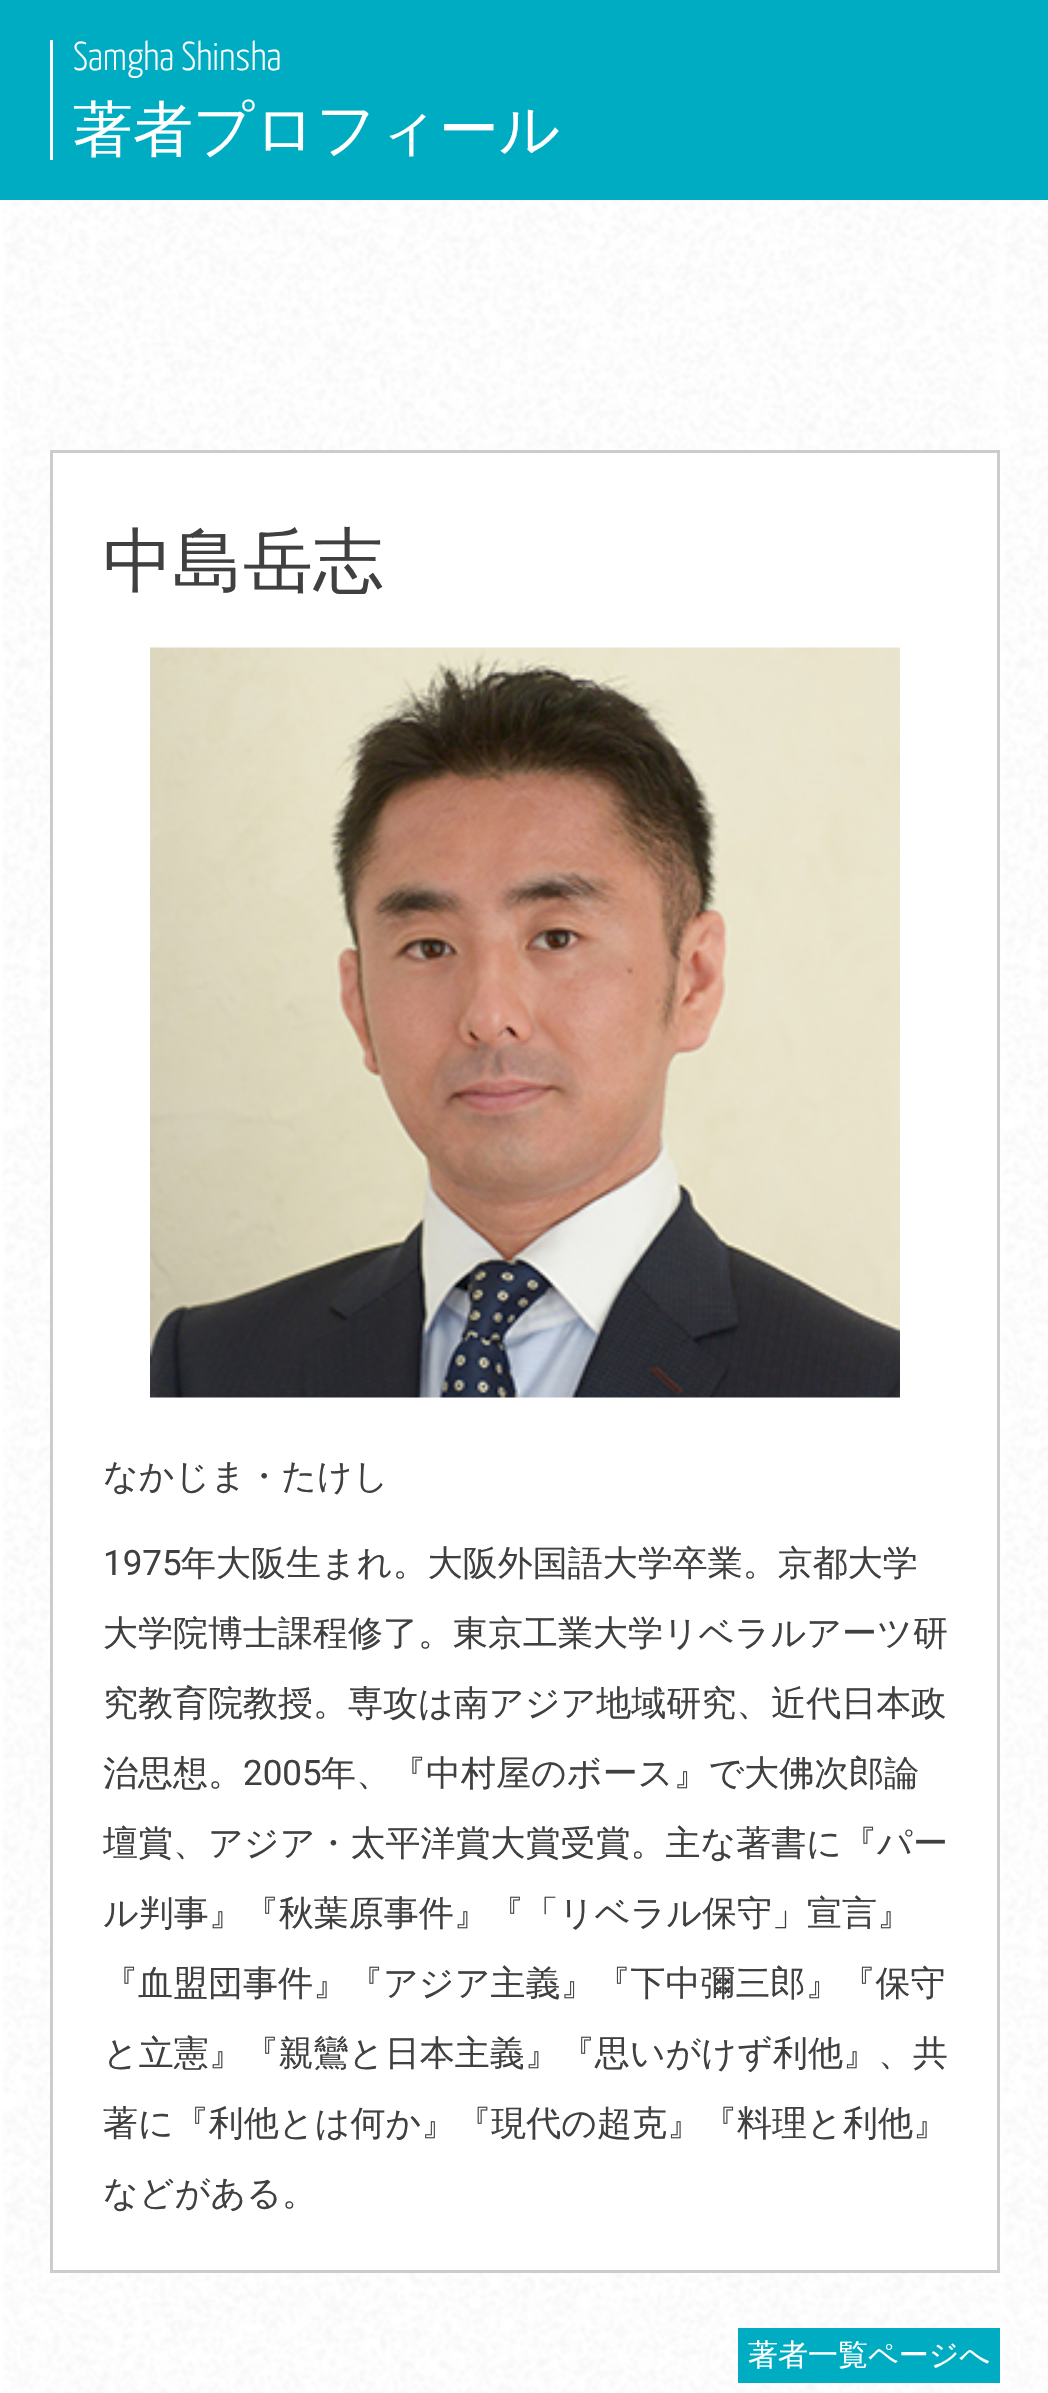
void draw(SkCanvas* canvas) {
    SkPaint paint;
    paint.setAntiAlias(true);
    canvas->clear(0xFFFFFFFF);
    canvas->drawImageRect(SkImages::DeferredFromEncodedData(SkData::MakeFromFileName("img1.png")), SkRect::MakeXYWH(2, 200, 1046, 2193), SkSamplingOptions());
    paint.setColor(0xFF00ACC1);
    canvas->drawRect(SkRect::MakeXYWH(0, 0, 1048, 200), paint);
    paint.setColor(0xFFFFFFFF);
    canvas->drawRect(SkRect::MakeXYWH(50, 40, 3, 120), paint);
    SkFont font1(fontMgr->matchFamilyStyle("Yanone Kaffeesatz", SkFontStyle(200, SkFontStyle::kNormal_Width, SkFontStyle::kUpright_Slant)), 40);
    font1.setSubpixel(true);
    canvas->drawString("Samgha Shinsha", 73, 70, font1, paint);
    SkFont font2(fontMgr->matchFamilyStyle("WenQuanYi Zen Hei", SkFontStyle(500, SkFontStyle::kNormal_Width, SkFontStyle::kUpright_Slant)), 60);
    font2.setSubpixel(true);
    canvas->drawString("著者プロフィール", 73, 150, font2, paint);
    canvas->drawRect(SkRect::MakeXYWH(51.5f, 451.5f, 947, 1820), paint);
    paint.setStyle(SkPaint::kStroke_Style);
    paint.setStrokeWidth(3);
    paint.setColor(0xFFCCCCCC);
    canvas->drawRect(SkRect::MakeXYWH(51.5f, 451.5f, 947, 1820), paint);
    SkFont font3(fontMgr->matchFamilyStyle("WenQuanYi Zen Hei", SkFontStyle(500, SkFontStyle::kNormal_Width, SkFontStyle::kUpright_Slant)), 70);
    font3.setSubpixel(true);
    paint.setStyle(SkPaint::kFill_Style);
    paint.setColor(0xFF404040);
    canvas->drawString("中島岳志", 103, 585, font3, paint);
    canvas->drawImageRect(SkImages::DeferredFromEncodedData(SkData::MakeFromFileName("img2.png")), SkRect::MakeXYWH(150, 647, 750, 751), SkSamplingOptions());
    SkFont font4(fontMgr->matchFamilyStyle("WenQuanYi Zen Hei", SkFontStyle(500, SkFontStyle::kNormal_Width, SkFontStyle::kUpright_Slant)), 35);
    font4.setSubpixel(true);
    canvas->drawString("なかじま・たけし", 103, 1488, font4, paint);
    SkFont font5(fontMgr->matchFamilyStyle("Roboto", SkFontStyle::Normal()), 35);
    font5.setSubpixel(true);
    canvas->drawString("1975", 103, 1575, font5, paint);
    canvas->drawString("年大阪生まれ。大阪外国語大学卒業。京都大学", 181, 1575, font4, paint);
    canvas->drawString("大学院博士課程修了。東京工業大学リベラルアーツ研", 103, 1645, font4, paint);
    canvas->drawString("究教育院教授。専攻は南アジア地域研究、近代日本政", 103, 1715, font4, paint);
    canvas->drawString("治思想。", 103, 1785, font4, paint);
    canvas->drawString("2005", 243, 1785, font5, paint);
    canvas->drawString("年、『中村屋のボース』で大佛次郎論", 321, 1785, font4, paint);
    canvas->drawString("壇賞、アジア・太平洋賞大賞受賞。主な著書に『パー", 103, 1855, font4, paint);
    canvas->drawString("ル判事』『秋葉原事件』『「リベラル保守」宣言』", 103, 1925, font4, paint);
    canvas->drawString("『血盟団事件』『アジア主義』『下中彌三郎』『保守", 103, 1995, font4, paint);
    canvas->drawString("と立憲』『親鸞と日本主義』『思いがけず利他』、共", 103, 2065, font4, paint);
    canvas->drawString("著に『利他とは何か』『現代の超克』『料理と利他』", 103, 2135, font4, paint);
    canvas->drawString("などがある。", 103, 2205, font4, paint);
    paint.setColor(0xFF00ACC1);
    canvas->drawRect(SkRect::MakeXYWH(738, 2328, 262, 55), paint);
    SkFont font6(fontMgr->matchFamilyStyle("WenQuanYi Zen Hei", SkFontStyle(500, SkFontStyle::kNormal_Width, SkFontStyle::kUpright_Slant)), 30);
    font6.setSubpixel(true);
    paint.setColor(0xFFFFFFFF);
    canvas->drawString("著者一覧ページへ", 748, 2365, font6, paint);
}
